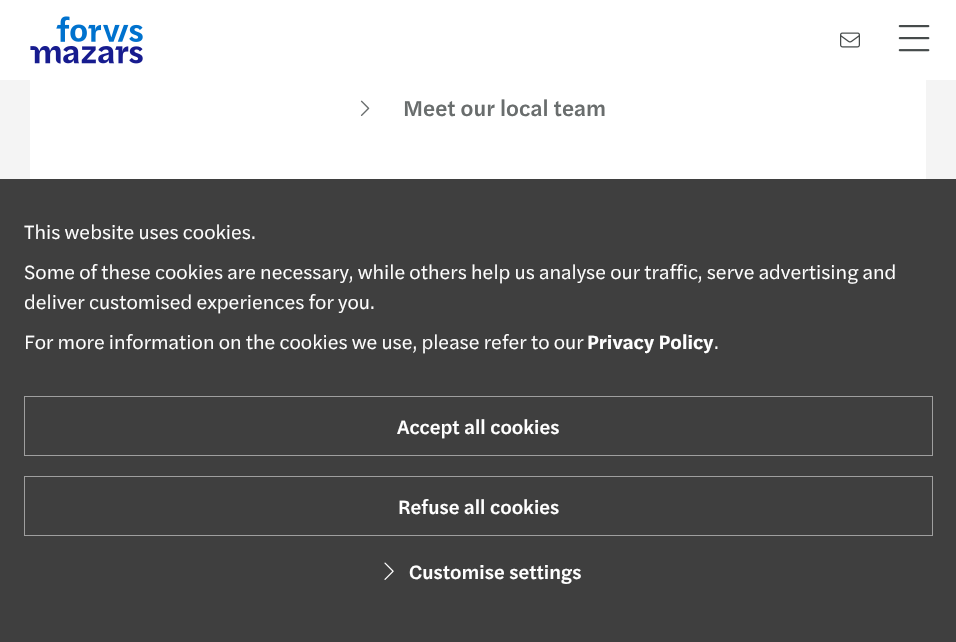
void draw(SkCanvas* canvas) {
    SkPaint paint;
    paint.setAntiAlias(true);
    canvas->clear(0xFFF4F4F4);
    paint.setColor(0xFFFFFFFF);
    canvas->drawRect(SkRect::MakeXYWH(0, 0, 956, 80), paint);
    canvas->drawImageRect(SkImages::DeferredFromEncodedData(SkData::MakeFromFileName("img1.png")), SkRect::MakeXYWH(30, 16, 113, 48), SkSamplingOptions());
    canvas->drawImageRect(SkImages::DeferredFromEncodedData(SkData::MakeFromFileName("img2.png")), SkRect::MakeXYWH(840, 32, 20, 16), SkSamplingOptions());
    canvas->drawImageRect(SkImages::DeferredFromEncodedData(SkData::MakeFromFileName("img3.png")), SkRect::MakeXYWH(898, 25, 32, 27), SkSamplingOptions());
    canvas->drawRect(SkRect::MakeXYWH(30, 80, 896, 99), paint);
    canvas->drawImageRect(SkImages::DeferredFromEncodedData(SkData::MakeFromFileName("img4.png")), SkRect::MakeXYWH(360, 100, 10, 16), SkSamplingOptions());
    SkFont font1(fontMgr->matchFamilyStyle("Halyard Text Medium", SkFontStyle(500, SkFontStyle::kNormal_Width, SkFontStyle::kUpright_Slant)), 22.5f);
    font1.setSubpixel(true);
    paint.setColor(0xFF696D6D);
    canvas->drawString("Meet our local team", 403, 116, font1, paint);
    paint.setColor(0xFF3F3F3F);
    canvas->drawRect(SkRect::MakeXYWH(0, 179, 956, 463), paint);
    SkFont font2(fontMgr->matchFamilyStyle("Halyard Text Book", SkFontStyle::Normal()), 20);
    font2.setSubpixel(true);
    paint.setColor(0xFFFFFFFF);
    canvas->drawString("This website uses cookies.", 24, 239, font2, paint);
    canvas->drawString("Some of these cookies are necessary, while others help us analyse our traffic, serve advertising and", 24, 279, font2, paint);
    canvas->drawString("deliver customised experiences for you.", 24, 309, font2, paint);
    canvas->drawString("For more information on the cookies we use, please refer to our", 24, 349, font2, paint);
    SkFont font3(fontMgr->matchFamilyStyle("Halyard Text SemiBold", SkFontStyle(600, SkFontStyle::kNormal_Width, SkFontStyle::kUpright_Slant)), 20);
    font3.setSubpixel(true);
    canvas->drawString("Privacy Policy", 587, 349, font3, paint);
    canvas->drawString(".", 714, 349, font2, paint);
    paint.setStyle(SkPaint::kStroke_Style);
    paint.setStrokeWidth(1);
    paint.setColor(0xFF9F9F9F);
    canvas->drawRect(SkRect::MakeXYWH(24.5f, 396.5f, 908, 59), paint);
    SkFont font4(fontMgr->matchFamilyStyle("Halyard Text Medium", SkFontStyle(500, SkFontStyle::kNormal_Width, SkFontStyle::kUpright_Slant)), 20);
    font4.setSubpixel(true);
    paint.setStyle(SkPaint::kFill_Style);
    paint.setColor(0xFFFFFFFF);
    canvas->drawString("Accept all cookies", 397, 434, font4, paint);
    paint.setStyle(SkPaint::kStroke_Style);
    paint.setColor(0xFF9F9F9F);
    canvas->drawRect(SkRect::MakeXYWH(24.5f, 476.5f, 908, 59), paint);
    paint.setStyle(SkPaint::kFill_Style);
    paint.setColor(0xFFFFFFFF);
    canvas->drawString("Refuse all cookies", 398, 514, font4, paint);
    canvas->drawImageRect(SkImages::DeferredFromEncodedData(SkData::MakeFromFileName("img5.png")), SkRect::MakeXYWH(384, 562, 10, 18), SkSamplingOptions());
    canvas->drawString("Customise settings", 409, 579, font4, paint);
}
